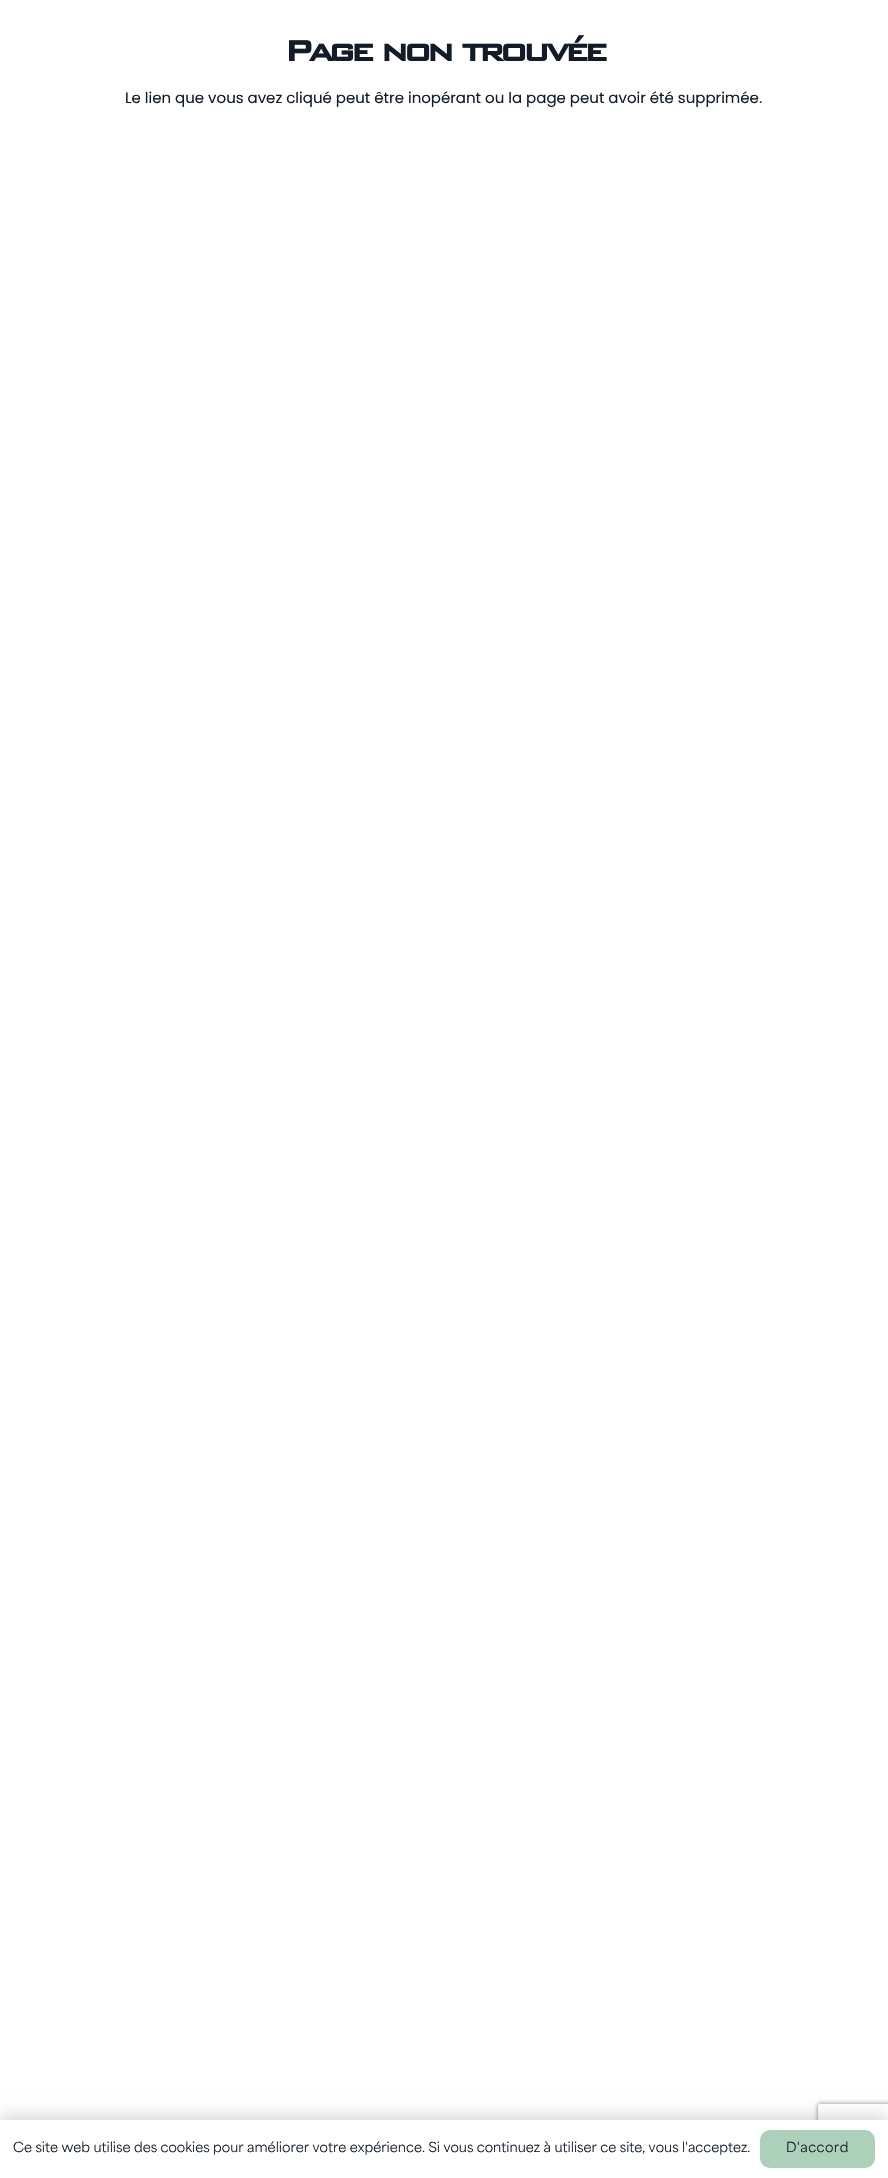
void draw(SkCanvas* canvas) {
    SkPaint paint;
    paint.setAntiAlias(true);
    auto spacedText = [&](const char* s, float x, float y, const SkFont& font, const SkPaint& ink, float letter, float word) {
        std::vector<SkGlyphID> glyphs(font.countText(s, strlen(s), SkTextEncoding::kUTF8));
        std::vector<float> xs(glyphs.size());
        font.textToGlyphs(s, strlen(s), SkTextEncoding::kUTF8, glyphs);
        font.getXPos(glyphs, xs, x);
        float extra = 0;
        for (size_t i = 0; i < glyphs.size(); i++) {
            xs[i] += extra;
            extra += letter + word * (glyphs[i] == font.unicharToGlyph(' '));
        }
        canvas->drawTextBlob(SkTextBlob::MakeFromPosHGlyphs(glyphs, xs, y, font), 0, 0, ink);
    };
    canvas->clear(0xFFFFFFFF);
    SkFont font1(fontMgr->matchFamilyStyle("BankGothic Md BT", SkFontStyle::Bold()), 38);
    font1.setSubpixel(true);
    paint.setColor(0xFF111C28);
    spacedText("Page non trouvée", 284, 61, font1, paint, -4, 0);
    SkFont font2(fontMgr->matchFamilyStyle("Poppins", SkFontStyle::Normal()), 15);
    font2.setSubpixel(true);
    canvas->drawString("Le lien que vous avez cliqué peut être inopérant ou la page peut avoir été supprimée.", 125, 103, font2, paint);
    paint.setColor(0x26000000);
    paint.setMaskFilter(SkMaskFilter::MakeBlur(kNormal_SkBlurStyle, 7.5f));
    canvas->drawRect(SkRect::MakeXYWH(0, 2115, 888, 58), paint);
    paint.setMaskFilter(nullptr);
    canvas->save();
    canvas->clipPath(SkPathBuilder(SkPathFillType::kEvenOdd).moveTo(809, 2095).lineTo(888, 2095).lineTo(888, 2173).lineTo(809, 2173).close().moveTo(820, 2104).lineTo(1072, 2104).cubicTo(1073, 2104, 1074, 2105, 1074, 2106).lineTo(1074, 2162).cubicTo(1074, 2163, 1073, 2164, 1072, 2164).lineTo(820, 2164).cubicTo(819, 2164, 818, 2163, 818, 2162).lineTo(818, 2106).cubicTo(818, 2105, 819, 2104, 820, 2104).close().detach(), true);
    paint.setColor(0xFF808080);
    paint.setMaskFilter(SkMaskFilter::MakeBlur(kNormal_SkBlurStyle, 2.5f));
    canvas->drawRoundRect(SkRect::MakeXYWH(818, 2104, 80, 60), 2, 2, paint);
    paint.setMaskFilter(nullptr);
    canvas->restore();
    paint.setColor(0xFFFFFFFF);
    canvas->drawRect(SkRect::MakeXYWH(0, 2120, 888, 58), paint);
    SkFont font3(fontMgr->matchFamilyStyle("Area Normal", SkFontStyle::Normal()), 13);
    font3.setSubpixel(true);
    paint.setColor(0xFF111C28);
    canvas->drawString("Ce site web utilise des cookies pour améliorer votre expérience. Si vous continuez à utiliser ce site, vous l'acceptez.", 13, 2152, font3, paint);
    paint.setColor(0xFFADD0B8);
    canvas->drawRoundRect(SkRect::MakeXYWH(760, 2130, 115, 38), 10, 10, paint);
    paint.setColor(0xFF111C28);
    spacedText("D'accord", 786, 2152, font3, paint, 0.5f, 0);
}
